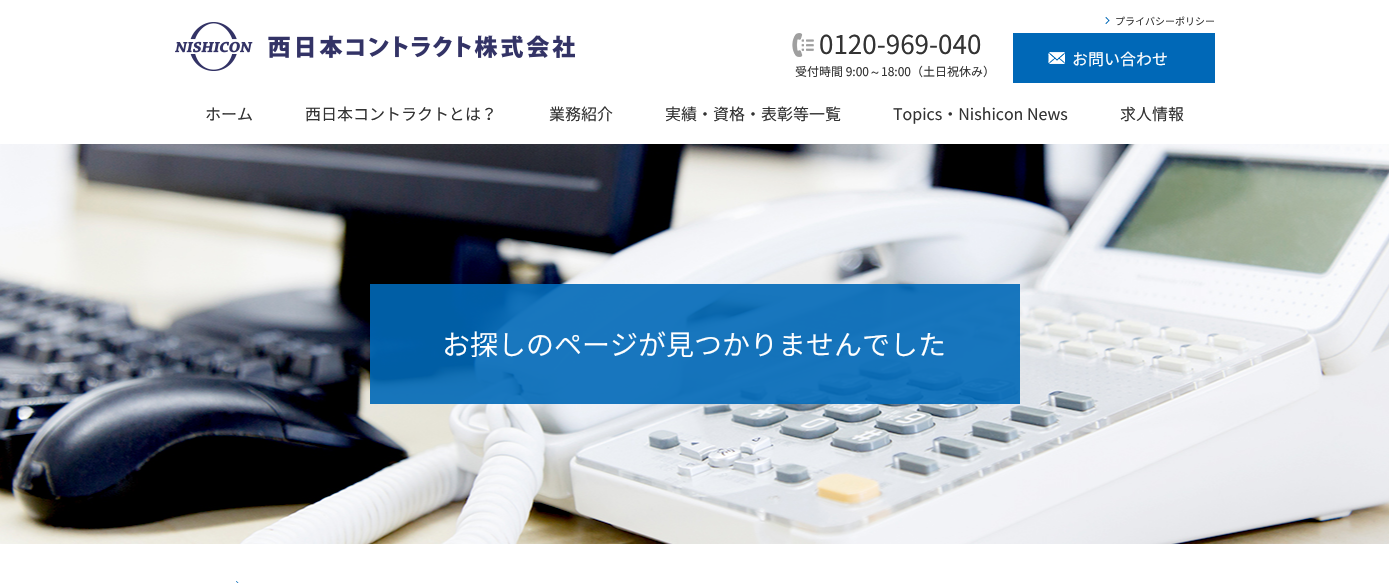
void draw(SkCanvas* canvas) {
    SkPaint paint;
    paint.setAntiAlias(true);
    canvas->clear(0xFFFFFFFF);
    canvas->drawImageRect(SkImages::DeferredFromEncodedData(SkData::MakeFromFileName("img1.png")), SkRect::MakeXYWH(175, 22, 400, 49), SkSamplingOptions());
    canvas->drawImageRect(SkImages::DeferredFromEncodedData(SkData::MakeFromFileName("img2.png")), SkRect::MakeXYWH(792, 33, 22, 24), SkSamplingOptions());
    SkFont font1(fontMgr->matchFamilyStyle("Noto Sans JP", SkFontStyle::Normal()), 26);
    font1.setSubpixel(true);
    paint.setColor(0xFF333333);
    canvas->drawString("0120-969-040", 819, 54, font1, paint);
    SkFont font2(fontMgr->matchFamilyStyle("Noto Sans JP", SkFontStyle::Normal()), 12);
    font2.setSubpixel(true);
    canvas->drawString("受付時間 9:00", 795, 76, font2, paint);
    SkFont font3(fontMgr->matchFamilyStyle("WenQuanYi Zen Hei", SkFontStyle(500, SkFontStyle::kNormal_Width, SkFontStyle::kUpright_Slant)), 12);
    font3.setSubpixel(true);
    canvas->drawString("～", 869, 76, font3, paint);
    canvas->drawString("18:00（土日祝休み）", 881, 76, font2, paint);
    canvas->drawImageRect(SkImages::DeferredFromEncodedData(SkData::MakeFromFileName("img3.png")), SkRect::MakeXYWH(1105, 17, 5, 7), SkSamplingOptions());
    SkFont font4(fontMgr->matchFamilyStyle("Noto Sans JP", SkFontStyle::Normal()), 10);
    font4.setSubpixel(true);
    canvas->drawString("プライバシーポリシー", 1115, 25, font4, paint);
    paint.setColor(0xFF0068B7);
    canvas->drawRect(SkRect::MakeXYWH(1013, 33, 202, 50), paint);
    canvas->drawImageRect(SkImages::DeferredFromEncodedData(SkData::MakeFromFileName("img4.png")), SkRect::MakeXYWH(1048, 52, 17, 12), SkSamplingOptions());
    SkFont font5(fontMgr->matchFamilyStyle("Noto Sans JP", SkFontStyle::Normal()), 16);
    font5.setSubpixel(true);
    paint.setColor(0xFFFFFFFF);
    canvas->drawString("お問い合わせ", 1072, 65, font5, paint);
    paint.setColor(0xFF333333);
    canvas->drawString("ホーム", 205, 120, font5, paint);
    canvas->drawString("西日本コントラクトとは？", 305, 120, font5, paint);
    canvas->drawString("業務紹介", 549, 120, font5, paint);
    canvas->drawString("実績・資格・表彰等一覧", 665, 120, font5, paint);
    canvas->drawString("Topics・Nishicon News", 893, 120, font5, paint);
    canvas->drawString("求人情報", 1120, 120, font5, paint);
    canvas->drawImageRect(SkImages::DeferredFromEncodedData(SkData::MakeFromFileName("img5.png")), SkRect::MakeXYWH(0, 144, 1389, 400), SkSamplingOptions());
    paint.setColor(0xE60068B7);
    canvas->drawRect(SkRect::MakeXYWH(370, 284, 650, 120), paint);
    SkFont font6(fontMgr->matchFamilyStyle("Noto Sans JP", SkFontStyle(300, SkFontStyle::kNormal_Width, SkFontStyle::kUpright_Slant)), 28);
    font6.setSubpixel(true);
    paint.setColor(0xFFFFFFFF);
    canvas->drawString("お探しのページが見つかりませんでした", 442, 355, font6, paint);
    canvas->drawImageRect(SkImages::DeferredFromEncodedData(SkData::MakeFromFileName("img6.png")), SkRect::MakeXYWH(236, 581, 3, 2), SkSamplingOptions());
}
